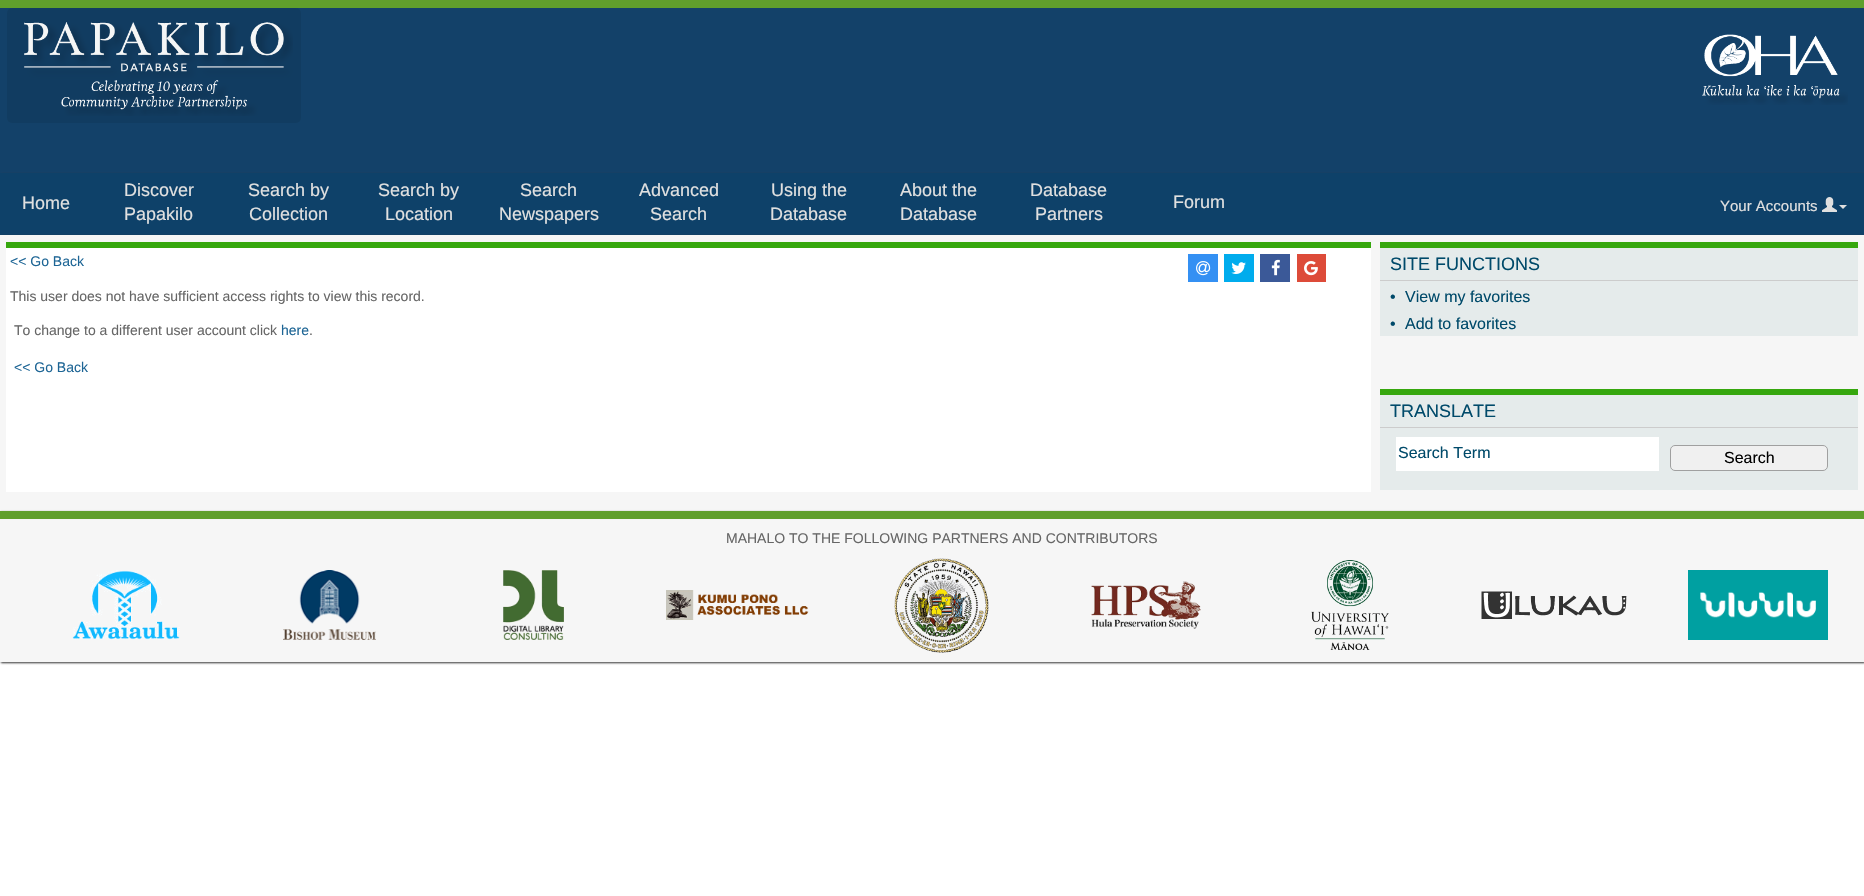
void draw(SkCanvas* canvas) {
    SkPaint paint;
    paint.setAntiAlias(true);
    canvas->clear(0xFFFFFFFF);
    paint.setColor(0xFF134169);
    canvas->drawRect(SkRect::MakeXYWH(0, 8, 1864, 165), paint);
    paint.setColor(0xFF609F2C);
    canvas->drawRect(SkRect::MakeXYWH(0, 0, 1864, 8), paint);
    paint.setColor(0xFF113C61);
    canvas->drawRoundRect(SkRect::MakeXYWH(7, 8, 294, 115), 5, 5, paint);
    canvas->drawImageRect(SkImages::DeferredFromEncodedData(SkData::MakeFromFileName("img1.png")), SkRect::MakeXYWH(24, 22, 269, 94), SkSamplingOptions());
    canvas->drawImageRect(SkImages::DeferredFromEncodedData(SkData::MakeFromFileName("img2.png")), SkRect::MakeXYWH(1702, 34, 146, 71), SkSamplingOptions());
    paint.setColor(0xFF333333);
    paint.setMaskFilter(SkMaskFilter::MakeBlur(kNormal_SkBlurStyle, 1));
    canvas->drawRect(SkRect::MakeXYWH(1, 174, 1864, 62), paint);
    paint.setMaskFilter(nullptr);
    paint.setColor(0xFF0E4169);
    canvas->drawRect(SkRect::MakeXYWH(0, 173, 1864, 62), paint);
    SkFont font1(fontMgr->matchFamilyStyle("Liberation Sans", SkFontStyle::Normal()), 18);
    font1.setSubpixel(true);
    paint.setColor(0xFFE0E0E0);
    canvas->drawString("Home", 22, 209, font1, paint);
    canvas->drawString("Discover", 124, 196, font1, paint);
    canvas->drawString("Papakilo", 124, 220, font1, paint);
    canvas->drawString("Search by", 248, 196, font1, paint);
    canvas->drawString("Collection", 249, 220, font1, paint);
    canvas->drawString("Search by", 378, 196, font1, paint);
    canvas->drawString("Location", 385, 220, font1, paint);
    canvas->drawString("Search", 520, 196, font1, paint);
    canvas->drawString("Newspapers", 499, 220, font1, paint);
    canvas->drawString("Advanced", 639, 196, font1, paint);
    canvas->drawString("Search", 650, 220, font1, paint);
    canvas->drawString("Using the", 771, 196, font1, paint);
    canvas->drawString("Database", 770, 220, font1, paint);
    canvas->drawString("About the", 900, 196, font1, paint);
    canvas->drawString("Database", 900, 220, font1, paint);
    canvas->drawString("Database", 1030, 196, font1, paint);
    canvas->drawString("Partners", 1035, 220, font1, paint);
    canvas->drawString("Forum", 1173, 208, font1, paint);
    SkFont font2(fontMgr->matchFamilyStyle("Liberation Sans", SkFontStyle::Normal()), 15);
    font2.setSubpixel(true);
    canvas->drawString("Your Accounts", 1720, 211, font2, paint);
    canvas->drawImageRect(SkImages::DeferredFromEncodedData(SkData::MakeFromFileName("img3.png")), SkRect::MakeXYWH(1822, 197, 15, 15), SkSamplingOptions());
    canvas->drawPath(SkPathBuilder().moveTo(1839, 205).lineTo(1847, 205).lineTo(1843, 209).close().detach(), paint);
    paint.setColor(0xFF333333);
    paint.setMaskFilter(SkMaskFilter::MakeBlur(kNormal_SkBlurStyle, 1));
    canvas->drawRect(SkRect::MakeXYWH(1, 236, 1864, 276), paint);
    paint.setMaskFilter(nullptr);
    paint.setColor(0xFFF6F6F6);
    canvas->drawRect(SkRect::MakeXYWH(0, 235, 1864, 276), paint);
    paint.setColor(0xFFFFFFFF);
    canvas->drawRect(SkRect::MakeXYWH(6, 248, 1365, 244), paint);
    paint.setColor(0xFF36A70E);
    canvas->drawRect(SkRect::MakeXYWH(6, 242, 1365, 6), paint);
    SkFont font3(fontMgr->matchFamilyStyle("Liberation Sans", SkFontStyle::Normal()), 14);
    font3.setSubpixel(true);
    paint.setColor(0xFF1D6595);
    canvas->drawString("<< Go Back", 10, 266, font3, paint);
    paint.setColor(0xFF3490F3);
    canvas->drawRect(SkRect::MakeXYWH(1188, 254, 30, 28), paint);
    canvas->drawImageRect(SkImages::DeferredFromEncodedData(SkData::MakeFromFileName("img4.png")), SkRect::MakeXYWH(1196, 261, 15, 15), SkSamplingOptions());
    paint.setColor(0xFF00ACED);
    canvas->drawRect(SkRect::MakeXYWH(1224, 254, 30, 28), paint);
    canvas->drawImageRect(SkImages::DeferredFromEncodedData(SkData::MakeFromFileName("img5.png")), SkRect::MakeXYWH(1231, 262, 15, 12), SkSamplingOptions());
    paint.setColor(0xFF3B5998);
    canvas->drawRect(SkRect::MakeXYWH(1260, 254, 30, 28), paint);
    canvas->drawImageRect(SkImages::DeferredFromEncodedData(SkData::MakeFromFileName("img6.png")), SkRect::MakeXYWH(1271, 259, 9, 17), SkSamplingOptions());
    paint.setColor(0xFFDD4B39);
    canvas->drawRect(SkRect::MakeXYWH(1297, 254, 29, 28), paint);
    canvas->drawImageRect(SkImages::DeferredFromEncodedData(SkData::MakeFromFileName("img7.png")), SkRect::MakeXYWH(1304, 261, 14, 15), SkSamplingOptions());
    paint.setColor(0xFF666666);
    canvas->drawString("This user does not have sufficient access rights to view this record.", 10, 301, font3, paint);
    canvas->drawString("To change to a different user account click", 14, 335, font3, paint);
    paint.setColor(0xFF1D6595);
    canvas->drawString("here", 281, 335, font3, paint);
    paint.setColor(0xFF666666);
    canvas->drawString(".", 309, 335, font3, paint);
    paint.setColor(0xFF1D6595);
    canvas->drawString("<< Go Back", 14, 372, font3, paint);
    paint.setColor(0xFF36A70E);
    canvas->drawRect(SkRect::MakeXYWH(1380, 242, 478, 6), paint);
    paint.setColor(0xFFE5EBEB);
    canvas->drawRect(SkRect::MakeXYWH(1380, 248, 478, 32), paint);
    paint.setColor(0xFFCCCCCC);
    canvas->drawRect(SkRect::MakeXYWH(1380, 280, 478, 1), paint);
    paint.setColor(0xFF004A6A);
    canvas->drawString("SITE FUNCTIONS", 1390, 270, font1, paint);
    paint.setColor(0xFFE5EBEB);
    canvas->drawRect(SkRect::MakeXYWH(1380, 281, 478, 55), paint);
    SkFont font4(fontMgr->matchFamilyStyle("Liberation Sans", SkFontStyle::Normal()), 16);
    font4.setSubpixel(true);
    paint.setColor(0xFF004A6A);
    canvas->drawString("•", 1390, 302, font4, paint);
    canvas->drawString("View my favorites", 1405, 302, font4, paint);
    canvas->drawString("•", 1390, 329, font4, paint);
    canvas->drawString("Add to favorites", 1405, 329, font4, paint);
    paint.setColor(0xFF36A70E);
    canvas->drawRect(SkRect::MakeXYWH(1380, 389, 478, 6), paint);
    paint.setColor(0xFFE5EBEB);
    canvas->drawRect(SkRect::MakeXYWH(1380, 395, 478, 32), paint);
    paint.setColor(0xFFCCCCCC);
    canvas->drawRect(SkRect::MakeXYWH(1380, 427, 478, 1), paint);
    paint.setColor(0xFF004A6A);
    canvas->drawString("TRANSLATE", 1390, 417, font1, paint);
    paint.setColor(0xFFE5EBEB);
    canvas->drawRect(SkRect::MakeXYWH(1380, 428, 478, 62), paint);
    paint.setColor(0xFFFFFFFF);
    canvas->drawRect(SkRect::MakeXYWH(1396, 437, 263, 34), paint);
    paint.setColor(0xFF004A6A);
    canvas->drawString("Search Term", 1398, 458, font4, paint);
    paint.setColor(0xFFF0F0F0);
    canvas->drawRoundRect(SkRect::MakeXYWH(1670.5f, 445.5f, 157, 25), 4.5f, 4.5f, paint);
    paint.setStyle(SkPaint::kStroke_Style);
    paint.setStrokeWidth(1);
    paint.setColor(0xFFA0A0A0);
    canvas->drawRoundRect(SkRect::MakeXYWH(1670.5f, 445.5f, 157, 25), 4.5f, 4.5f, paint);
    paint.setStyle(SkPaint::kFill_Style);
    paint.setColor(0xFF000000);
    canvas->drawString("Search", 1724, 463, font4, paint);
    paint.setColor(0xFF333333);
    paint.setMaskFilter(SkMaskFilter::MakeBlur(kNormal_SkBlurStyle, 1));
    canvas->drawRect(SkRect::MakeXYWH(1, 512, 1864, 151), paint);
    paint.setMaskFilter(nullptr);
    paint.setColor(0xFFF6F6F6);
    canvas->drawRect(SkRect::MakeXYWH(0, 519, 1864, 143), paint);
    paint.setColor(0xFF609F2C);
    canvas->drawRect(SkRect::MakeXYWH(0, 511, 1864, 8), paint);
    paint.setColor(0xFF666666);
    canvas->drawString("MAHALO TO THE FOLLOWING PARTNERS AND CONTRIBUTORS", 726, 543, font3, paint);
    canvas->drawImageRect(SkImages::DeferredFromEncodedData(SkData::MakeFromFileName("img8.png")), SkRect::MakeXYWH(72, 570, 108, 70), SkSamplingOptions());
    canvas->drawImageRect(SkImages::DeferredFromEncodedData(SkData::MakeFromFileName("img9.png")), SkRect::MakeXYWH(283, 570, 93, 70), SkSamplingOptions());
    canvas->drawImageRect(SkImages::DeferredFromEncodedData(SkData::MakeFromFileName("img10.png")), SkRect::MakeXYWH(503, 570, 61, 70), SkSamplingOptions());
    canvas->drawImageRect(SkImages::DeferredFromEncodedData(SkData::MakeFromFileName("img11.png")), SkRect::MakeXYWH(666, 590, 143, 30), SkSamplingOptions());
    canvas->drawImageRect(SkImages::DeferredFromEncodedData(SkData::MakeFromFileName("img12.png")), SkRect::MakeXYWH(894, 558, 95, 95), SkSamplingOptions());
    canvas->drawImageRect(SkImages::DeferredFromEncodedData(SkData::MakeFromFileName("img13.png")), SkRect::MakeXYWH(1090, 581, 111, 48), SkSamplingOptions());
    canvas->drawImageRect(SkImages::DeferredFromEncodedData(SkData::MakeFromFileName("img14.png")), SkRect::MakeXYWH(1311, 560, 78, 90), SkSamplingOptions());
    canvas->drawImageRect(SkImages::DeferredFromEncodedData(SkData::MakeFromFileName("img15.png")), SkRect::MakeXYWH(1481, 591, 146, 28), SkSamplingOptions());
    canvas->drawImageRect(SkImages::DeferredFromEncodedData(SkData::MakeFromFileName("img16.png")), SkRect::MakeXYWH(1688, 570, 140, 70), SkSamplingOptions());
}
